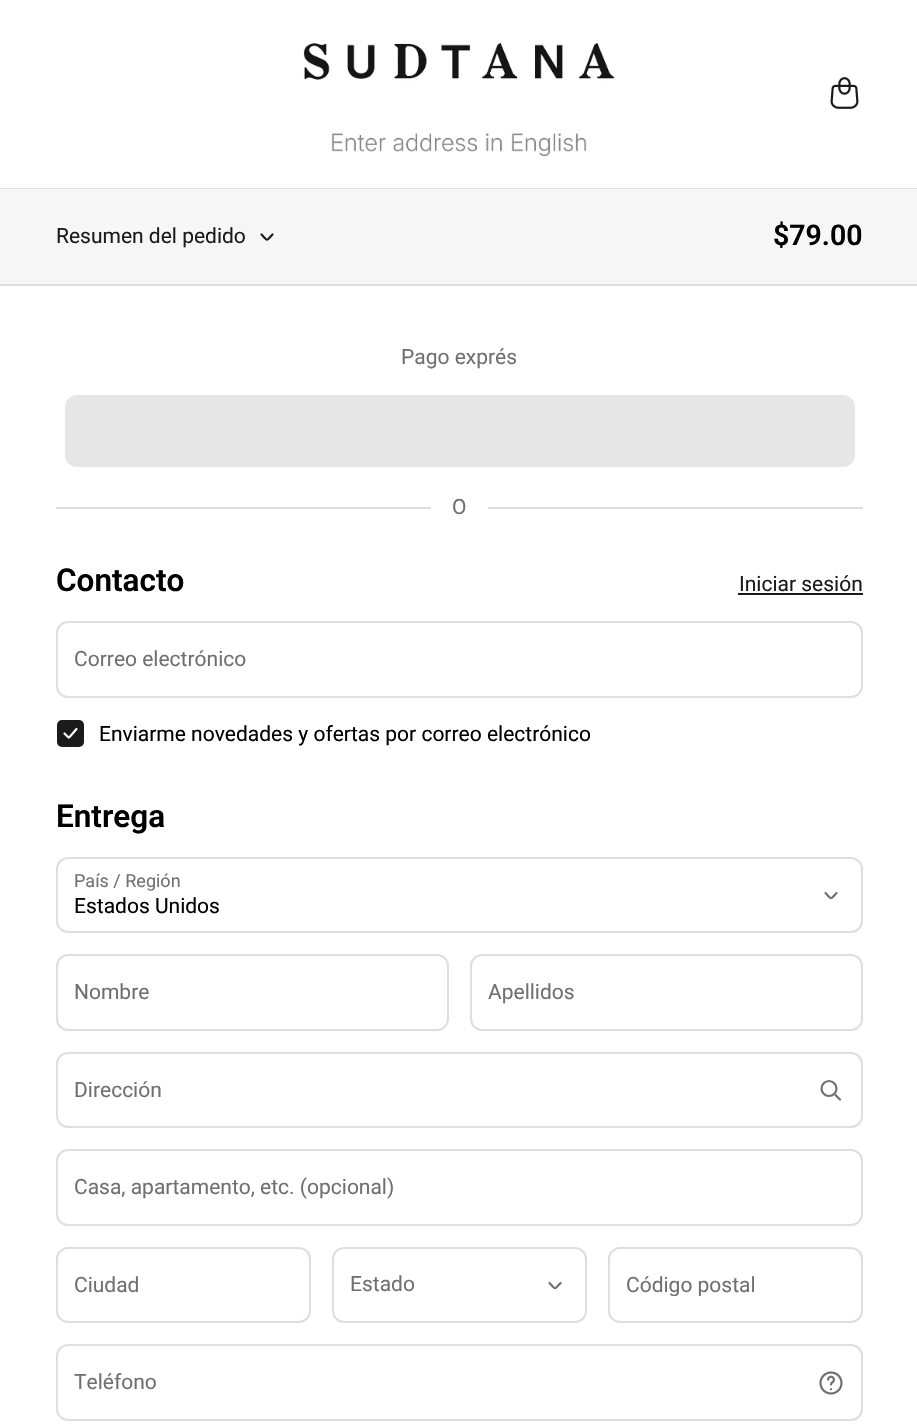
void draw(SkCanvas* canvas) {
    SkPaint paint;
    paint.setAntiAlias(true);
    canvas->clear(0xFFFFFFFF);
    paint.setColor(0xFFDFDFDF);
    canvas->drawRect(SkRect::MakeXYWH(0, 188, 917, 1), paint);
    canvas->drawImageRect(SkImages::DeferredFromEncodedData(SkData::MakeFromFileName("img1.png")), SkRect::MakeXYWH(303, 42, 312, 114), SkSamplingOptions());
    canvas->drawImageRect(SkImages::DeferredFromEncodedData(SkData::MakeFromFileName("img2.png")), SkRect::MakeXYWH(830, 77, 29, 32), SkSamplingOptions());
    paint.setColor(0xFFF6F6F6);
    canvas->drawRect(SkRect::MakeXYWH(0, 189, 917, 95), paint);
    paint.setColor(0xFFDFDFDF);
    canvas->drawRect(SkRect::MakeXYWH(0, 284, 917, 2), paint);
    SkFont font1(fontMgr->matchFamilyStyle("Roboto", SkFontStyle::Normal()), 21);
    font1.setSubpixel(true);
    paint.setColor(0xFF1C1B1B);
    canvas->drawString("Resumen del pedido", 56, 243, font1, paint);
    paint.setStyle(SkPaint::kStroke_Style);
    paint.setStrokeWidth(2.2f);
    paint.setStrokeCap(SkPaint::kRound_Cap);
    paint.setStrokeJoin(SkPaint::kRound_Join);
    canvas->drawPath(SkPathBuilder().moveTo(272.5f, 234.5f).cubicTo(265.5f, 241.5f, 268.5f, 241.5f, 261.5f, 234.5f).detach(), paint);
    SkFont font2(fontMgr->matchFamilyStyle("Roboto", SkFontStyle(600, SkFontStyle::kNormal_Width, SkFontStyle::kUpright_Slant)), 28.5f);
    font2.setSubpixel(true);
    paint.setStyle(SkPaint::kFill_Style);
    paint.setColor(0xFF000000);
    canvas->drawString("$79.00", 773, 245, font2, paint);
    paint.setColor(0xFF707070);
    canvas->drawString("Pago exprés", 401, 364, font1, paint);
    paint.setColor(0xFFE6E6E6);
    canvas->drawRoundRect(SkRect::MakeXYWH(65, 395, 790, 72), 12, 12, paint);
    paint.setColor(0xFFDFDFDF);
    canvas->drawRect(SkRect::MakeXYWH(56, 507, 375, 2), paint);
    paint.setColor(0xFF707070);
    canvas->drawString("O", 452, 514, font1, paint);
    paint.setColor(0xFFDFDFDF);
    canvas->drawRect(SkRect::MakeXYWH(488, 507, 375, 2), paint);
    SkFont font3(fontMgr->matchFamilyStyle("Roboto", SkFontStyle(600, SkFontStyle::kNormal_Width, SkFontStyle::kUpright_Slant)), 31.5f);
    font3.setSubpixel(true);
    paint.setColor(0xFF000000);
    canvas->drawString("Contacto", 56, 591, font3, paint);
    paint.setColor(0xFF1C1B1B);
    canvas->drawString("Iniciar sesión", 739, 591, font1, paint);
    canvas->drawRect(SkRect::MakeXYWH(738, 593, 125, 2), paint);
    paint.setStyle(SkPaint::kStroke_Style);
    paint.setStrokeWidth(2);
    paint.setStrokeCap(SkPaint::kButt_Cap);
    paint.setStrokeJoin(SkPaint::kMiter_Join);
    paint.setColor(0xFFDEDEDE);
    canvas->drawRoundRect(SkRect::MakeXYWH(57, 622, 805, 75), 11, 11, paint);
    paint.setStyle(SkPaint::kFill_Style);
    paint.setColor(0xFF707070);
    canvas->drawString("Correo electrónico", 74, 666, font1, paint);
    paint.setColor(0xFF1C1B1B);
    canvas->drawRoundRect(SkRect::MakeXYWH(57, 720, 27, 27), 5, 5, paint);
    paint.setStyle(SkPaint::kStroke_Style);
    paint.setStrokeWidth(2.2f);
    paint.setStrokeCap(SkPaint::kRound_Cap);
    paint.setStrokeJoin(SkPaint::kRound_Join);
    paint.setColor(0xFFFFFFFF);
    canvas->drawPath(SkPathBuilder().moveTo(64.5f, 733.5f).lineTo(68, 737).cubicTo(69, 738, 69, 737.5f, 70.5f, 736).lineTo(76.5f, 729).detach(), paint);
    paint.setStyle(SkPaint::kFill_Style);
    paint.setColor(0xFF000000);
    canvas->drawString("Enviarme novedades y ofertas por correo electrónico", 99, 741, font1, paint);
    canvas->drawString("Entrega", 56, 827, font3, paint);
    paint.setStyle(SkPaint::kStroke_Style);
    paint.setStrokeWidth(2);
    paint.setStrokeCap(SkPaint::kButt_Cap);
    paint.setStrokeJoin(SkPaint::kMiter_Join);
    paint.setColor(0xFFDEDEDE);
    canvas->drawRoundRect(SkRect::MakeXYWH(57, 858, 805, 74), 11, 11, paint);
    SkFont font4(fontMgr->matchFamilyStyle("Roboto", SkFontStyle::Normal()), 18);
    font4.setSubpixel(true);
    paint.setStyle(SkPaint::kFill_Style);
    paint.setColor(0xFF707070);
    canvas->drawString("País / Región", 74, 887, font4, paint);
    paint.setStyle(SkPaint::kStroke_Style);
    paint.setStrokeWidth(2.2f);
    paint.setStrokeCap(SkPaint::kRound_Cap);
    paint.setStrokeJoin(SkPaint::kRound_Join);
    canvas->drawPath(SkPathBuilder().moveTo(836.5f, 893).cubicTo(829.5f, 900, 832.5f, 900, 825.5f, 893).detach(), paint);
    paint.setStyle(SkPaint::kFill_Style);
    paint.setColor(0xFF000000);
    canvas->drawString("Estados Unidos", 74, 913, font1, paint);
    paint.setStyle(SkPaint::kStroke_Style);
    paint.setStrokeWidth(2);
    paint.setStrokeCap(SkPaint::kButt_Cap);
    paint.setStrokeJoin(SkPaint::kMiter_Join);
    paint.setColor(0xFFDEDEDE);
    canvas->drawRoundRect(SkRect::MakeXYWH(57, 955, 391, 75), 11, 11, paint);
    paint.setStyle(SkPaint::kFill_Style);
    paint.setColor(0xFF707070);
    canvas->drawString("Nombre", 74, 999, font1, paint);
    paint.setStyle(SkPaint::kStroke_Style);
    paint.setColor(0xFFDEDEDE);
    canvas->drawRoundRect(SkRect::MakeXYWH(471, 955, 391, 75), 11, 11, paint);
    paint.setStyle(SkPaint::kFill_Style);
    paint.setColor(0xFF707070);
    canvas->drawString("Apellidos", 488, 999, font1, paint);
    paint.setStyle(SkPaint::kStroke_Style);
    paint.setColor(0xFFDEDEDE);
    canvas->drawRoundRect(SkRect::MakeXYWH(57, 1053, 805, 74), 11, 11, paint);
    paint.setStyle(SkPaint::kFill_Style);
    paint.setColor(0xFF707070);
    canvas->drawString("Dirección", 74, 1097, font1, paint);
    paint.setStyle(SkPaint::kStroke_Style);
    paint.setStrokeWidth(2.2f);
    canvas->drawCircle(829, 1088.5f, 7.5f, paint);
    paint.setStrokeCap(SkPaint::kRound_Cap);
    paint.setStrokeJoin(SkPaint::kRound_Join);
    canvas->drawPath(SkPathBuilder().moveTo(835.5f, 1095).lineTo(840, 1099.5f).detach(), paint);
    paint.setStrokeWidth(2);
    paint.setStrokeCap(SkPaint::kButt_Cap);
    paint.setStrokeJoin(SkPaint::kMiter_Join);
    paint.setColor(0xFFDEDEDE);
    canvas->drawRoundRect(SkRect::MakeXYWH(57, 1150, 805, 75), 11, 11, paint);
    paint.setStyle(SkPaint::kFill_Style);
    paint.setColor(0xFF707070);
    canvas->drawString("Casa, apartamento, etc. (opcional)", 74, 1194, font1, paint);
    paint.setStyle(SkPaint::kStroke_Style);
    paint.setColor(0xFFDEDEDE);
    canvas->drawRoundRect(SkRect::MakeXYWH(57, 1248, 253, 74), 11, 11, paint);
    paint.setStyle(SkPaint::kFill_Style);
    paint.setColor(0xFF707070);
    canvas->drawString("Ciudad", 74, 1292, font1, paint);
    paint.setStyle(SkPaint::kStroke_Style);
    paint.setColor(0xFFDEDEDE);
    canvas->drawRoundRect(SkRect::MakeXYWH(333, 1248, 253, 74), 11, 11, paint);
    paint.setStyle(SkPaint::kFill_Style);
    paint.setColor(0xFF707070);
    canvas->drawString("Estado", 350, 1291, font1, paint);
    paint.setStyle(SkPaint::kStroke_Style);
    paint.setStrokeWidth(2.2f);
    paint.setStrokeCap(SkPaint::kRound_Cap);
    paint.setStrokeJoin(SkPaint::kRound_Join);
    canvas->drawPath(SkPathBuilder().moveTo(560.5f, 1283).cubicTo(553.5f, 1290, 556.5f, 1290, 549.5f, 1283).detach(), paint);
    paint.setStrokeWidth(2);
    paint.setStrokeCap(SkPaint::kButt_Cap);
    paint.setStrokeJoin(SkPaint::kMiter_Join);
    paint.setColor(0xFFDEDEDE);
    canvas->drawRoundRect(SkRect::MakeXYWH(609, 1248, 253, 74), 11, 11, paint);
    canvas->save();
    canvas->clipRect(SkRect::MakeXYWH(626, 1272, 219, 24));
    paint.setStyle(SkPaint::kFill_Style);
    paint.setColor(0xFF707070);
    canvas->drawString("Código postal", 626, 1292, font1, paint);
    canvas->restore();
    paint.setStyle(SkPaint::kStroke_Style);
    paint.setColor(0xFFDEDEDE);
    canvas->drawRoundRect(SkRect::MakeXYWH(57, 1345, 805, 75), 11, 11, paint);
    paint.setStyle(SkPaint::kFill_Style);
    paint.setColor(0xFF707070);
    canvas->drawString("Teléfono", 74, 1389, font1, paint);
    canvas->drawImageRect(SkImages::DeferredFromEncodedData(SkData::MakeFromFileName("img3.png")), SkRect::MakeXYWH(819, 1371, 24, 24), SkSamplingOptions());
}
